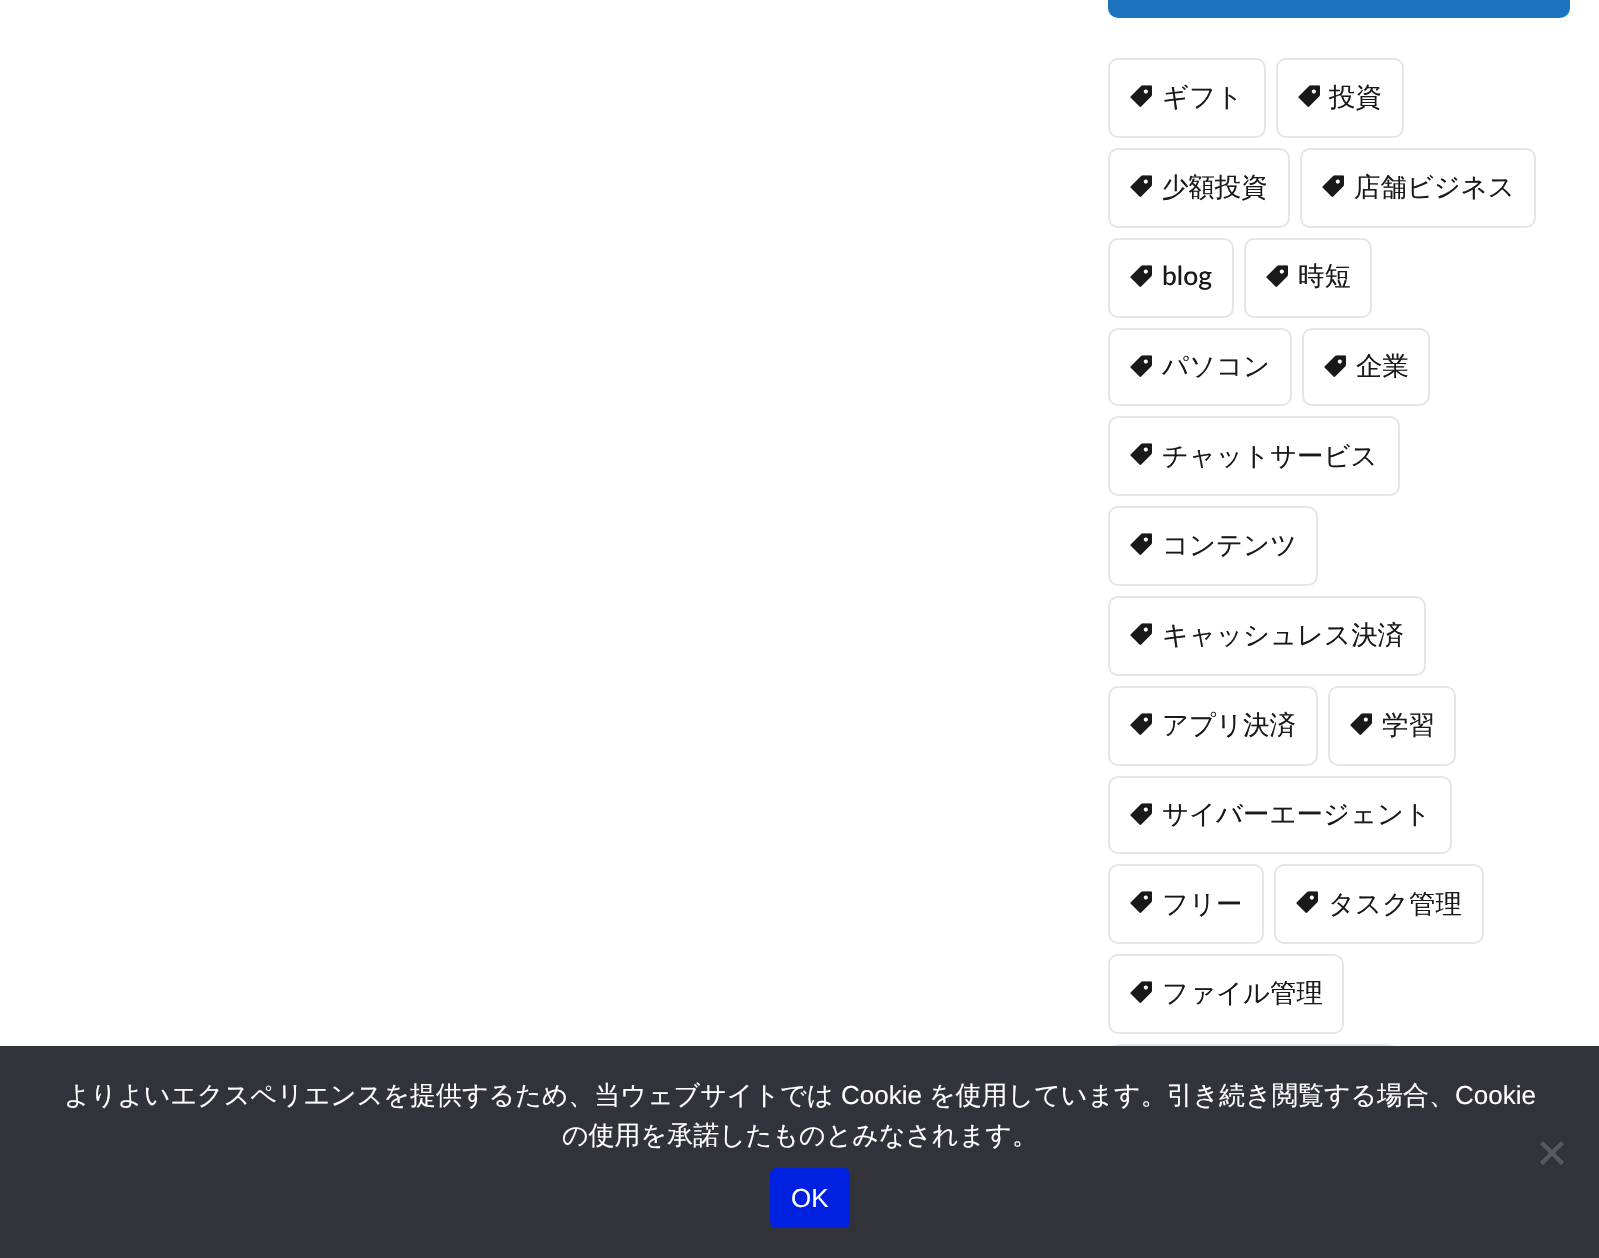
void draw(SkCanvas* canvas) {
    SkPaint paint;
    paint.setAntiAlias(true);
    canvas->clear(0xFFFFFFFF);
    paint.setColor(0xFF1E73BE);
    canvas->drawRoundRect(SkRect::MakeXYWH(1108, -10, 462, 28), 10, 10, paint);
    paint.setStyle(SkPaint::kStroke_Style);
    paint.setStrokeWidth(2);
    paint.setColor(0xFFE6E6E6);
    canvas->drawRoundRect(SkRect::MakeXYWH(1109, 59, 156, 78), 9, 9, paint);
    canvas->drawImageRect(SkImages::DeferredFromEncodedData(SkData::MakeFromFileName("img1.png")), SkRect::MakeXYWH(1130, 85, 22, 22), SkSamplingOptions());
    SkFont font1(fontMgr->matchFamilyStyle("WenQuanYi Zen Hei", SkFontStyle(500, SkFontStyle::kNormal_Width, SkFontStyle::kUpright_Slant)), 26.4f);
    font1.setSubpixel(true);
    paint.setStyle(SkPaint::kFill_Style);
    paint.setColor(0xFF191919);
    canvas->drawString("ギフト", 1162, 106, font1, paint);
    paint.setStyle(SkPaint::kStroke_Style);
    paint.setColor(0xFFE6E6E6);
    canvas->drawRoundRect(SkRect::MakeXYWH(1277, 59, 126, 78), 9, 9, paint);
    canvas->drawImageRect(SkImages::DeferredFromEncodedData(SkData::MakeFromFileName("img1.png")), SkRect::MakeXYWH(1298, 85, 22, 22), SkSamplingOptions());
    paint.setStyle(SkPaint::kFill_Style);
    paint.setColor(0xFF191919);
    canvas->drawString("投資", 1329, 106, font1, paint);
    paint.setStyle(SkPaint::kStroke_Style);
    paint.setColor(0xFFE6E6E6);
    canvas->drawRoundRect(SkRect::MakeXYWH(1109, 149, 180, 78), 9, 9, paint);
    canvas->drawImageRect(SkImages::DeferredFromEncodedData(SkData::MakeFromFileName("img1.png")), SkRect::MakeXYWH(1130, 175, 22, 22), SkSamplingOptions());
    paint.setStyle(SkPaint::kFill_Style);
    paint.setColor(0xFF191919);
    canvas->drawString("少額投資", 1162, 196, font1, paint);
    paint.setStyle(SkPaint::kStroke_Style);
    paint.setColor(0xFFE6E6E6);
    canvas->drawRoundRect(SkRect::MakeXYWH(1301, 149, 234, 78), 9, 9, paint);
    canvas->drawImageRect(SkImages::DeferredFromEncodedData(SkData::MakeFromFileName("img1.png")), SkRect::MakeXYWH(1322, 175, 22, 22), SkSamplingOptions());
    paint.setStyle(SkPaint::kFill_Style);
    paint.setColor(0xFF191919);
    canvas->drawString("店舗ビジネス", 1354, 196, font1, paint);
    paint.setStyle(SkPaint::kStroke_Style);
    paint.setColor(0xFFE6E6E6);
    canvas->drawRoundRect(SkRect::MakeXYWH(1109, 239, 124, 78), 9, 9, paint);
    canvas->drawImageRect(SkImages::DeferredFromEncodedData(SkData::MakeFromFileName("img1.png")), SkRect::MakeXYWH(1130, 265, 22, 22), SkSamplingOptions());
    SkFont font2(fontMgr->matchFamilyStyle("Lato", SkFontStyle(500, SkFontStyle::kNormal_Width, SkFontStyle::kUpright_Slant)), 26.4f);
    font2.setSubpixel(true);
    paint.setStyle(SkPaint::kFill_Style);
    paint.setColor(0xFF191919);
    canvas->drawString("blog", 1162, 285, font2, paint);
    paint.setStyle(SkPaint::kStroke_Style);
    paint.setColor(0xFFE6E6E6);
    canvas->drawRoundRect(SkRect::MakeXYWH(1245, 239, 126, 78), 9, 9, paint);
    canvas->drawImageRect(SkImages::DeferredFromEncodedData(SkData::MakeFromFileName("img1.png")), SkRect::MakeXYWH(1266, 265, 22, 22), SkSamplingOptions());
    paint.setStyle(SkPaint::kFill_Style);
    paint.setColor(0xFF191919);
    canvas->drawString("時短", 1298, 285, font1, paint);
    paint.setStyle(SkPaint::kStroke_Style);
    paint.setColor(0xFFE6E6E6);
    canvas->drawRoundRect(SkRect::MakeXYWH(1109, 329, 182, 76), 9, 9, paint);
    canvas->drawImageRect(SkImages::DeferredFromEncodedData(SkData::MakeFromFileName("img1.png")), SkRect::MakeXYWH(1130, 355, 22, 22), SkSamplingOptions());
    paint.setStyle(SkPaint::kFill_Style);
    paint.setColor(0xFF191919);
    canvas->drawString("パソコン", 1162, 375, font1, paint);
    paint.setStyle(SkPaint::kStroke_Style);
    paint.setColor(0xFFE6E6E6);
    canvas->drawRoundRect(SkRect::MakeXYWH(1303, 329, 126, 76), 9, 9, paint);
    canvas->drawImageRect(SkImages::DeferredFromEncodedData(SkData::MakeFromFileName("img1.png")), SkRect::MakeXYWH(1324, 355, 22, 22), SkSamplingOptions());
    paint.setStyle(SkPaint::kFill_Style);
    paint.setColor(0xFF191919);
    canvas->drawString("企業", 1356, 375, font1, paint);
    paint.setStyle(SkPaint::kStroke_Style);
    paint.setColor(0xFFE6E6E6);
    canvas->drawRoundRect(SkRect::MakeXYWH(1109, 417, 290, 78), 9, 9, paint);
    canvas->drawImageRect(SkImages::DeferredFromEncodedData(SkData::MakeFromFileName("img1.png")), SkRect::MakeXYWH(1130, 443, 22, 22), SkSamplingOptions());
    paint.setStyle(SkPaint::kFill_Style);
    paint.setColor(0xFF191919);
    canvas->drawString("チャットサービス", 1162, 465, font1, paint);
    paint.setStyle(SkPaint::kStroke_Style);
    paint.setColor(0xFFE6E6E6);
    canvas->drawRoundRect(SkRect::MakeXYWH(1109, 507, 208, 78), 9, 9, paint);
    canvas->drawImageRect(SkImages::DeferredFromEncodedData(SkData::MakeFromFileName("img1.png")), SkRect::MakeXYWH(1130, 533, 22, 22), SkSamplingOptions());
    paint.setStyle(SkPaint::kFill_Style);
    paint.setColor(0xFF191919);
    canvas->drawString("コンテンツ", 1162, 554, font1, paint);
    paint.setStyle(SkPaint::kStroke_Style);
    paint.setColor(0xFFE6E6E6);
    canvas->drawRoundRect(SkRect::MakeXYWH(1109, 597, 316, 78), 9, 9, paint);
    canvas->drawImageRect(SkImages::DeferredFromEncodedData(SkData::MakeFromFileName("img1.png")), SkRect::MakeXYWH(1130, 623, 22, 22), SkSamplingOptions());
    paint.setStyle(SkPaint::kFill_Style);
    paint.setColor(0xFF191919);
    canvas->drawString("キャッシュレス決済", 1162, 644, font1, paint);
    paint.setStyle(SkPaint::kStroke_Style);
    paint.setColor(0xFFE6E6E6);
    canvas->drawRoundRect(SkRect::MakeXYWH(1109, 687, 208, 78), 9, 9, paint);
    canvas->drawImageRect(SkImages::DeferredFromEncodedData(SkData::MakeFromFileName("img1.png")), SkRect::MakeXYWH(1130, 713, 22, 22), SkSamplingOptions());
    paint.setStyle(SkPaint::kFill_Style);
    paint.setColor(0xFF191919);
    canvas->drawString("アプリ決済", 1162, 734, font1, paint);
    paint.setStyle(SkPaint::kStroke_Style);
    paint.setColor(0xFFE6E6E6);
    canvas->drawRoundRect(SkRect::MakeXYWH(1329, 687, 126, 78), 9, 9, paint);
    canvas->drawImageRect(SkImages::DeferredFromEncodedData(SkData::MakeFromFileName("img1.png")), SkRect::MakeXYWH(1350, 713, 22, 22), SkSamplingOptions());
    paint.setStyle(SkPaint::kFill_Style);
    paint.setColor(0xFF191919);
    canvas->drawString("学習", 1382, 734, font1, paint);
    paint.setStyle(SkPaint::kStroke_Style);
    paint.setColor(0xFFE6E6E6);
    canvas->drawRoundRect(SkRect::MakeXYWH(1109, 777, 342, 76), 9, 9, paint);
    canvas->drawImageRect(SkImages::DeferredFromEncodedData(SkData::MakeFromFileName("img1.png")), SkRect::MakeXYWH(1130, 803, 22, 22), SkSamplingOptions());
    paint.setStyle(SkPaint::kFill_Style);
    paint.setColor(0xFF191919);
    canvas->drawString("サイバーエージェント", 1162, 823, font1, paint);
    paint.setStyle(SkPaint::kStroke_Style);
    paint.setColor(0xFFE6E6E6);
    canvas->drawRoundRect(SkRect::MakeXYWH(1109, 865, 154, 78), 9, 9, paint);
    canvas->drawImageRect(SkImages::DeferredFromEncodedData(SkData::MakeFromFileName("img1.png")), SkRect::MakeXYWH(1130, 891, 22, 22), SkSamplingOptions());
    paint.setStyle(SkPaint::kFill_Style);
    paint.setColor(0xFF191919);
    canvas->drawString("フリー", 1162, 913, font1, paint);
    paint.setStyle(SkPaint::kStroke_Style);
    paint.setColor(0xFFE6E6E6);
    canvas->drawRoundRect(SkRect::MakeXYWH(1275, 865, 208, 78), 9, 9, paint);
    canvas->drawImageRect(SkImages::DeferredFromEncodedData(SkData::MakeFromFileName("img1.png")), SkRect::MakeXYWH(1296, 891, 22, 22), SkSamplingOptions());
    paint.setStyle(SkPaint::kFill_Style);
    paint.setColor(0xFF191919);
    canvas->drawString("タスク管理", 1328, 913, font1, paint);
    paint.setStyle(SkPaint::kStroke_Style);
    paint.setColor(0xFFE6E6E6);
    canvas->drawRoundRect(SkRect::MakeXYWH(1109, 955, 234, 78), 9, 9, paint);
    canvas->drawImageRect(SkImages::DeferredFromEncodedData(SkData::MakeFromFileName("img1.png")), SkRect::MakeXYWH(1130, 981, 22, 22), SkSamplingOptions());
    paint.setStyle(SkPaint::kFill_Style);
    paint.setColor(0xFF191919);
    canvas->drawString("ファイル管理", 1162, 1002, font1, paint);
    paint.setStyle(SkPaint::kStroke_Style);
    paint.setColor(0xFFE6E6E6);
    canvas->drawRoundRect(SkRect::MakeXYWH(1109, 1045, 288, 78), 9, 9, paint);
    paint.setStyle(SkPaint::kFill_Style);
    paint.setColor(0xFF32323A);
    canvas->drawRect(SkRect::MakeXYWH(0, 1046, 1599, 212), paint);
    SkFont font3(fontMgr->matchFamilyStyle("WenQuanYi Zen Hei", SkFontStyle(500, SkFontStyle::kNormal_Width, SkFontStyle::kUpright_Slant)), 26);
    font3.setSubpixel(true);
    paint.setColor(0xFFFFFFFF);
    canvas->drawString("よりよいエクスペリエンスを提供するため、当ウェブサイトでは", 64, 1104, font3, paint);
    SkFont font4(fontMgr->matchFamilyStyle("Liberation Sans", SkFontStyle::Normal()), 26);
    font4.setSubpixel(true);
    canvas->drawString("Cookie", 841, 1104, font4, paint);
    canvas->drawString("を使用しています。引き続き閲覧する場合、", 929, 1104, font3, paint);
    canvas->drawString("Cookie", 1455, 1104, font4, paint);
    canvas->drawString("の使用を承諾したものとみなされます。", 562, 1144, font3, paint);
    paint.setColor(0xFF59595D);
    canvas->drawPath(SkPathBuilder().moveTo(1561, 1141).lineTo(1564, 1144).lineTo(1543, 1165).lineTo(1540, 1162).close().detach(), paint);
    canvas->drawPath(SkPathBuilder().moveTo(1540, 1144).lineTo(1543, 1141).lineTo(1564, 1162).lineTo(1561, 1165).close().detach(), paint);
    paint.setColor(0xFF0021E0);
    canvas->drawRoundRect(SkRect::MakeXYWH(770, 1168, 80, 60), 6, 6, paint);
    paint.setColor(0xFFFFFFFF);
    canvas->drawString("OK", 791, 1207, font4, paint);
}
